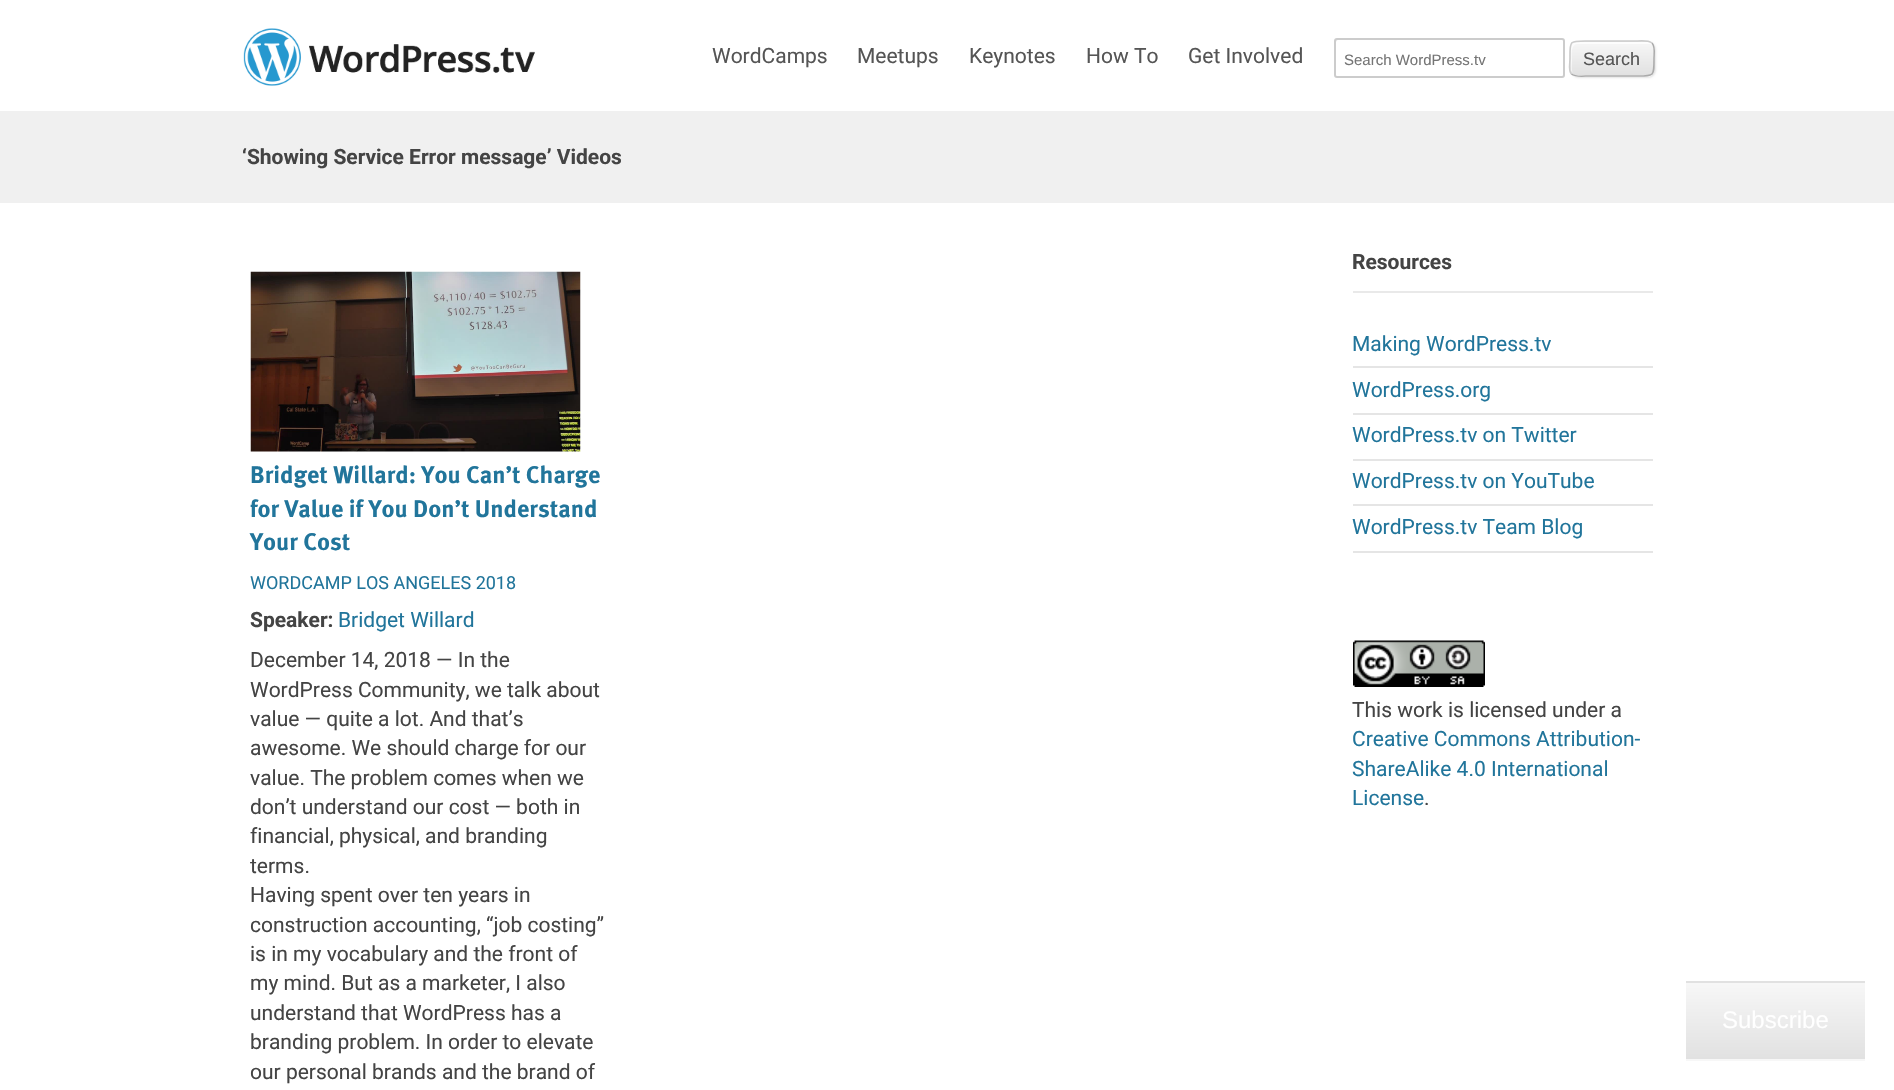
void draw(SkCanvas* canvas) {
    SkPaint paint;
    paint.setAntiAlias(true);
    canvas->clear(0xFFFFFFFF);
    canvas->drawImageRect(SkImages::DeferredFromEncodedData(SkData::MakeFromFileName("img1.png")), SkRect::MakeXYWH(243, 28, 292, 58), SkSamplingOptions());
    SkFont font1(fontMgr->matchFamilyStyle("Roboto", SkFontStyle::Normal()), 21);
    font1.setSubpixel(true);
    paint.setColor(0xFF555555);
    canvas->drawString("WordCamps", 712, 63, font1, paint);
    canvas->drawString("Meetups", 857, 63, font1, paint);
    canvas->drawString("Keynotes", 969, 63, font1, paint);
    canvas->drawString("How To", 1086, 63, font1, paint);
    canvas->drawString("Get Involved", 1188, 63, font1, paint);
    paint.setColor(0xFFE6E6E6);
    canvas->drawPath(SkPathBuilder().moveTo(1338, 40).lineTo(1563, 40).cubicTo(1563, 39, 1562, 39, 1562, 39).lineTo(1336, 39).cubicTo(1336, 39, 1335, 40, 1335, 40).lineTo(1335, 76).cubicTo(1335, 76, 1336, 77, 1336, 77).lineTo(1336, 48).cubicTo(1336, 47, 1335, 40, 1338, 40).close().detach(), paint);
    paint.setStyle(SkPaint::kStroke_Style);
    paint.setStrokeWidth(2);
    paint.setColor(0xFFCCCCCC);
    canvas->drawRoundRect(SkRect::MakeXYWH(1335, 39, 229, 38), 2, 2, paint);
    SkFont font2(fontMgr->matchFamilyStyle("Liberation Sans", SkFontStyle::Normal()), 15);
    font2.setSubpixel(true);
    paint.setStyle(SkPaint::kFill_Style);
    paint.setColor(0xFF757575);
    canvas->drawString("Search WordPress.tv", 1344, 65, font2, paint);
    paint.setColor(0x1A000000);
    paint.setMaskFilter(SkMaskFilter::MakeBlur(kNormal_SkBlurStyle, 1));
    canvas->drawRoundRect(SkRect::MakeXYWH(1571, 42, 85, 36), 8, 8, paint);
    paint.setMaskFilter(nullptr);
    canvas->save();
    canvas->clipPath(SkPathBuilder().moveTo(1577, 41).lineTo(1647, 41).cubicTo(1651.5f, 41, 1655, 44.5f, 1655, 49).lineTo(1655, 69).cubicTo(1655, 73.5f, 1651.5f, 77, 1647, 77).lineTo(1577, 77).cubicTo(1572.5f, 77, 1569, 73.5f, 1569, 69).lineTo(1569, 49).cubicTo(1569, 44.5f, 1572.5f, 41, 1577, 41).close().detach(), true);
    {
        const SkColor colors[] = {0xFFF7F7F7, 0xFFE1E1E1};
        const float stops[] = {0, 1};
        const SkPoint ends[] = {{1571, 9}, {1571, 42}};
        paint.setShader(SkGradientShader::MakeLinear(ends, colors, stops, 2, SkTileMode::kClamp));
        paint.setAlpha(255);
    }
    canvas->drawRect(SkRect::MakeXYWH(1569, 41, 86, 1), paint);
    {
        const SkColor colors[] = {0xFFF7F7F7, 0xFFE1E1E1};
        const float stops[] = {0, 1};
        const SkPoint ends[] = {{1571, 42}, {1571, 75}};
        paint.setShader(SkGradientShader::MakeLinear(ends, colors, stops, 2, SkTileMode::kClamp));
        paint.setAlpha(255);
    }
    canvas->drawRect(SkRect::MakeXYWH(1569, 42, 86, 33), paint);
    {
        const SkColor colors[] = {0xFFF7F7F7, 0xFFE1E1E1};
        const float stops[] = {0, 1};
        const SkPoint ends[] = {{1571, 75}, {1571, 108}};
        paint.setShader(SkGradientShader::MakeLinear(ends, colors, stops, 2, SkTileMode::kClamp));
        paint.setAlpha(255);
    }
    canvas->drawRect(SkRect::MakeXYWH(1569, 75, 86, 2), paint);
    canvas->restore();
    paint.setShader(nullptr);
    paint.setColor(0xB3FFFFFF);
    canvas->drawPath(SkPathBuilder().moveTo(1578, 44).lineTo(1648, 44).cubicTo(1650, 44, 1651, 44, 1652, 45).cubicTo(1651, 43, 1649, 42, 1647, 42).lineTo(1577, 42).cubicTo(1574, 42, 1571, 45, 1571, 48).lineTo(1571, 69).cubicTo(1571, 71, 1572, 72, 1573, 73).cubicTo(1571, 70, 1572, 64, 1572, 60).cubicTo(1572, 55, 1570, 44, 1578, 44).close().detach(), paint);
    paint.setStyle(SkPaint::kStroke_Style);
    paint.setStrokeWidth(1.5f);
    paint.setColor(0xFFAAAAAA);
    canvas->drawPath(SkPathBuilder().moveTo(1652, 43).cubicTo(1655.5f, 46.5f, 1654, 54, 1654, 58.5f).cubicTo(1654, 77, 1654.5f, 76, 1635, 76).lineTo(1588, 76).cubicTo(1585, 76, 1575.5f, 77.5f, 1571.5f, 74).detach(), paint);
    paint.setColor(0xFFCCCCCC);
    canvas->drawPath(SkPathBuilder().moveTo(1571.5f, 74).cubicTo(1568, 70.5f, 1570, 63, 1570, 58.5f).cubicTo(1570, 40, 1569, 41, 1588, 41).lineTo(1635, 41).cubicTo(1638.5f, 41, 1648, 39.5f, 1652, 43).detach(), paint);
    SkFont font3(fontMgr->matchFamilyStyle("Liberation Sans", SkFontStyle::Normal()), 18);
    font3.setSubpixel(true);
    paint.setStyle(SkPaint::kFill_Style);
    paint.setColor(0xFF555555);
    canvas->drawString("Search", 1583, 65, font3, paint);
    paint.setColor(0xFFF0F0F0);
    canvas->drawRect(SkRect::MakeXYWH(0, 111, 1894, 92), paint);
    SkFont font4(fontMgr->matchFamilyStyle("Roboto", SkFontStyle::Bold()), 21);
    font4.setSubpixel(true);
    paint.setColor(0xFF444444);
    canvas->drawString("‘Showing Service Error message’ Videos", 242, 164, font4, paint);
    canvas->drawImageRect(SkImages::DeferredFromEncodedData(SkData::MakeFromFileName("img2.png")), SkRect::MakeXYWH(250, 271, 331, 181), SkSamplingOptions());
    SkFont font5(fontMgr->matchFamilyStyle("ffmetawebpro", SkFontStyle::Bold()), 24);
    font5.setSubpixel(true);
    paint.setColor(0xFF21759B);
    canvas->drawString("Bridget Willard: You Can’t Charge", 250, 483, font5, paint);
    canvas->drawString("for Value if You Don’t Understand", 250, 517, font5, paint);
    canvas->drawString("Your Cost", 250, 550, font5, paint);
    SkFont font6(fontMgr->matchFamilyStyle("Roboto", SkFontStyle::Normal()), 18);
    font6.setSubpixel(true);
    canvas->drawString("WORDCAMP LOS ANGELES 2018", 250, 589, font6, paint);
    paint.setColor(0xFF444444);
    canvas->drawString("Speaker:", 250, 627, font4, paint);
    paint.setColor(0xFF21759B);
    canvas->drawString("Bridget Willard", 338, 627, font1, paint);
    paint.setColor(0xFF444444);
    canvas->drawString("December 14, 2018 — In the", 250, 667, font1, paint);
    canvas->drawString("WordPress Community, we talk about", 250, 697, font1, paint);
    canvas->drawString("value — quite a lot. And that’s", 250, 726, font1, paint);
    canvas->drawString("awesome. We should charge for our", 250, 755, font1, paint);
    canvas->drawString("value. The problem comes when we", 250, 785, font1, paint);
    canvas->drawString("don’t understand our cost — both in", 250, 814, font1, paint);
    canvas->drawString("financial, physical, and branding", 250, 843, font1, paint);
    canvas->drawString("terms.", 250, 873, font1, paint);
    canvas->drawString("Having spent over ten years in", 250, 902, font1, paint);
    canvas->drawString("construction accounting, “job costing”", 250, 932, font1, paint);
    canvas->drawString("is in my vocabulary and the front of", 250, 961, font1, paint);
    canvas->drawString("my mind. But as a marketer, I also", 250, 990, font1, paint);
    canvas->drawString("understand that WordPress has a", 250, 1020, font1, paint);
    canvas->drawString("branding problem. In order to elevate", 250, 1049, font1, paint);
    canvas->drawString("our personal brands and the brand of", 250, 1079, font1, paint);
    paint.setColor(0xFFE9E9E9);
    canvas->drawRect(SkRect::MakeXYWH(1353, 291, 300, 2), paint);
    paint.setColor(0xFF444444);
    canvas->drawString("Resources", 1352, 269, font4, paint);
    paint.setColor(0xFFE5E5E5);
    canvas->drawRect(SkRect::MakeXYWH(1353, 366, 300, 2), paint);
    paint.setColor(0xFF21759B);
    canvas->drawString("Making WordPress.tv", 1352, 351, font1, paint);
    paint.setColor(0xFFE5E5E5);
    canvas->drawRect(SkRect::MakeXYWH(1353, 413, 300, 2), paint);
    paint.setColor(0xFF21759B);
    canvas->drawString("WordPress.org", 1352, 397, font1, paint);
    paint.setColor(0xFFE5E5E5);
    canvas->drawRect(SkRect::MakeXYWH(1353, 459, 300, 2), paint);
    paint.setColor(0xFF21759B);
    canvas->drawString("WordPress.tv on Twitter", 1352, 442, font1, paint);
    paint.setColor(0xFFE5E5E5);
    canvas->drawRect(SkRect::MakeXYWH(1353, 504, 300, 2), paint);
    paint.setColor(0xFF21759B);
    canvas->drawString("WordPress.tv on YouTube", 1352, 488, font1, paint);
    paint.setColor(0xFFE5E5E5);
    canvas->drawRect(SkRect::MakeXYWH(1353, 551, 300, 2), paint);
    paint.setColor(0xFF21759B);
    canvas->drawString("WordPress.tv Team Blog", 1352, 534, font1, paint);
    canvas->drawImageRect(SkImages::DeferredFromEncodedData(SkData::MakeFromFileName("img3.png")), SkRect::MakeXYWH(1353, 640, 132, 47), SkSamplingOptions());
    paint.setColor(0xFF444444);
    canvas->drawString("This work is licensed under a", 1352, 717, font1, paint);
    paint.setColor(0xFF21759B);
    canvas->drawString("Creative Commons Attribution-", 1352, 746, font1, paint);
    canvas->drawString("ShareAlike 4.0 International", 1352, 776, font1, paint);
    canvas->drawString("License", 1352, 805, font1, paint);
    paint.setColor(0xFF444444);
    canvas->drawString(".", 1424, 805, font1, paint);
    {
        const SkColor colors[] = {0xFFF7F7F7, 0xFFE1E1E1};
        const float stops[] = {0, 1};
        const SkPoint ends[] = {{1688, 906}, {1688, 983}};
        paint.setShader(SkGradientShader::MakeLinear(ends, colors, stops, 2, SkTileMode::kClamp));
        paint.setAlpha(255);
    }
    canvas->drawRect(SkRect::MakeXYWH(1686, 981, 179, 2), paint);
    {
        const SkColor colors[] = {0xFFF7F7F7, 0xFFE1E1E1};
        const float stops[] = {0, 1};
        const SkPoint ends[] = {{1688, 983}, {1688, 1059}};
        paint.setShader(SkGradientShader::MakeLinear(ends, colors, stops, 2, SkTileMode::kClamp));
        paint.setAlpha(255);
    }
    canvas->drawRect(SkRect::MakeXYWH(1686, 983, 179, 76), paint);
    {
        const SkColor colors[] = {0xFFF7F7F7, 0xFFE1E1E1};
        const float stops[] = {0, 1};
        const SkPoint ends[] = {{1688, 1059}, {1688, 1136}};
        paint.setShader(SkGradientShader::MakeLinear(ends, colors, stops, 2, SkTileMode::kClamp));
        paint.setAlpha(255);
    }
    canvas->drawRect(SkRect::MakeXYWH(1686, 1059, 179, 2), paint);
    SkFont font7(fontMgr->matchFamilyStyle("Liberation Sans", SkFontStyle::Normal()), 24);
    font7.setSubpixel(true);
    paint.setShader(nullptr);
    paint.setColor(0xFFFFFFFF);
    canvas->drawString("Subscribe", 1722, 1028, font7, paint);
}
